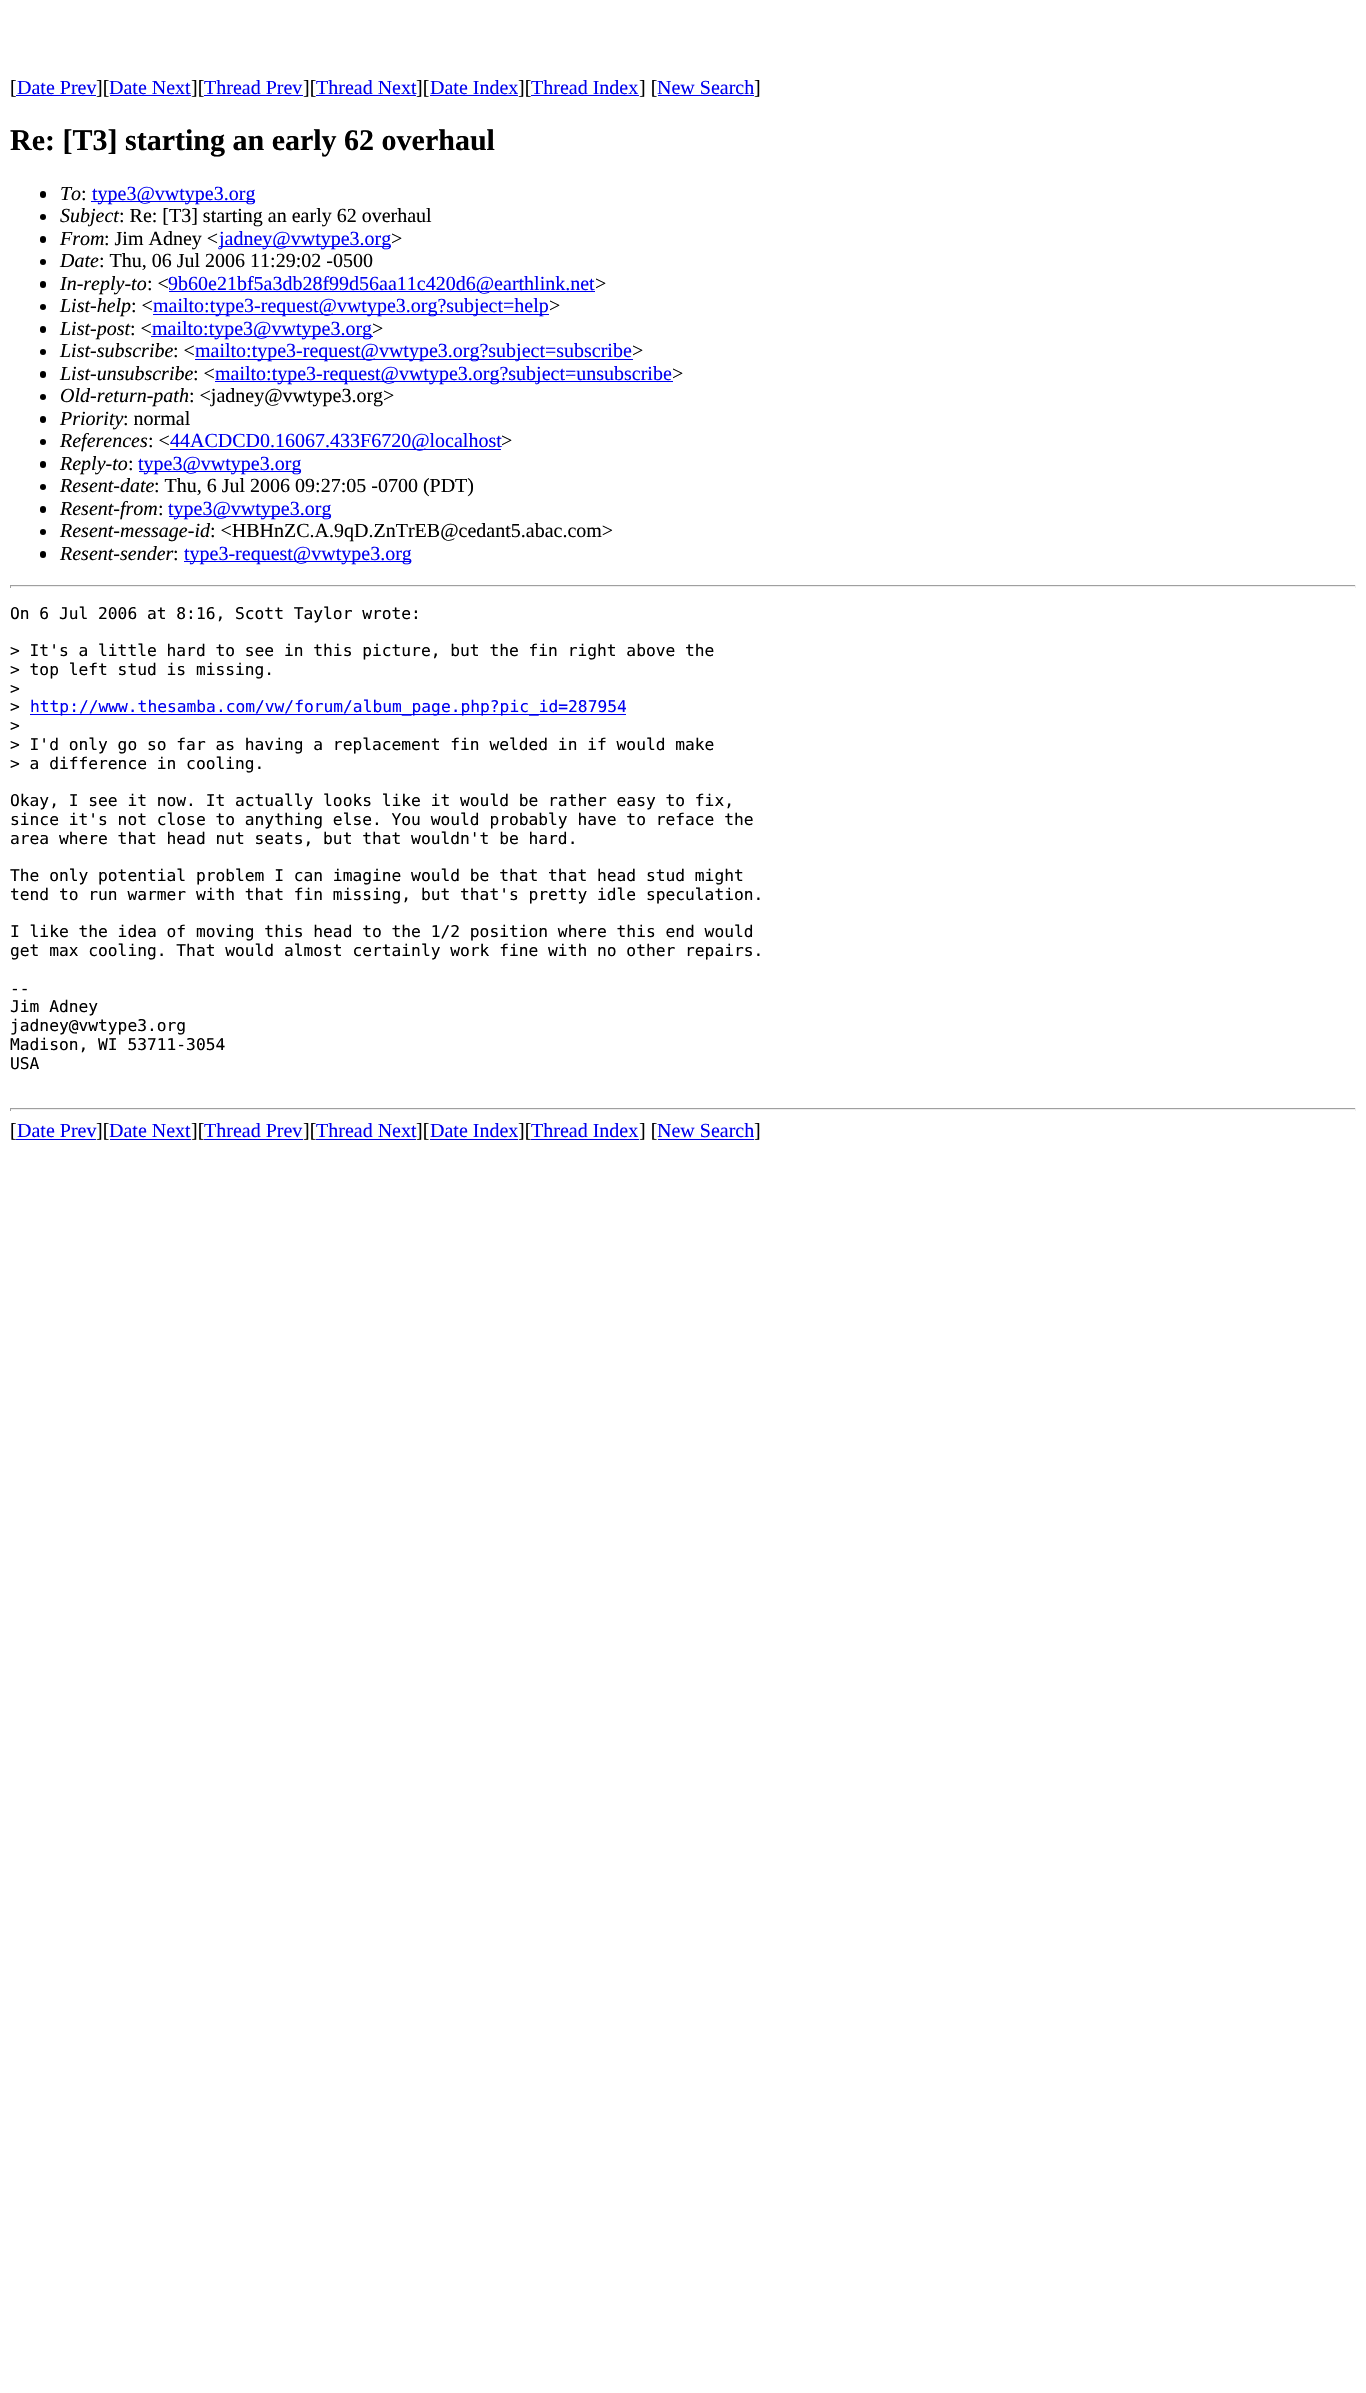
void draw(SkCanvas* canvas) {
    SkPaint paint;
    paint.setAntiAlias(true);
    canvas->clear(0xFFFFFFFF);
    SkFont font1(fontMgr->matchFamilyStyle("Liberation Serif", SkFontStyle::Normal()), 20);
    font1.setSubpixel(true);
    paint.setColor(0xFF000000);
    canvas->drawString("[", 10, 94, font1, paint);
    paint.setColor(0xFF0000EE);
    canvas->drawString("Date Prev", 17, 94, font1, paint);
    canvas->drawRect(SkRect::MakeXYWH(16, 95, 80, 1), paint);
    paint.setColor(0xFF000000);
    canvas->drawString("][", 96, 94, font1, paint);
    paint.setColor(0xFF0000EE);
    canvas->drawString("Date Next", 109, 94, font1, paint);
    canvas->drawRect(SkRect::MakeXYWH(110, 95, 81, 1), paint);
    paint.setColor(0xFF000000);
    canvas->drawString("][", 191, 94, font1, paint);
    paint.setColor(0xFF0000EE);
    canvas->drawString("Thread Prev", 204, 94, font1, paint);
    canvas->drawRect(SkRect::MakeXYWH(204, 95, 99, 1), paint);
    paint.setColor(0xFF000000);
    canvas->drawString("][", 303, 94, font1, paint);
    paint.setColor(0xFF0000EE);
    canvas->drawString("Thread Next", 316, 94, font1, paint);
    canvas->drawRect(SkRect::MakeXYWH(316, 95, 100, 1), paint);
    paint.setColor(0xFF000000);
    canvas->drawString("][", 416, 94, font1, paint);
    paint.setColor(0xFF0000EE);
    canvas->drawString("Date Index", 430, 94, font1, paint);
    canvas->drawRect(SkRect::MakeXYWH(430, 95, 88, 1), paint);
    paint.setColor(0xFF000000);
    canvas->drawString("][", 518, 94, font1, paint);
    paint.setColor(0xFF0000EE);
    canvas->drawString("Thread Index", 531, 94, font1, paint);
    canvas->drawRect(SkRect::MakeXYWH(531, 95, 108, 1), paint);
    paint.setColor(0xFF000000);
    canvas->drawString("] [", 639, 94, font1, paint);
    paint.setColor(0xFF0000EE);
    canvas->drawString("New Search", 657, 94, font1, paint);
    canvas->drawRect(SkRect::MakeXYWH(658, 95, 96, 1), paint);
    paint.setColor(0xFF000000);
    canvas->drawString("]", 754, 94, font1, paint);
    SkFont font2(fontMgr->matchFamilyStyle("Liberation Serif", SkFontStyle::Bold()), 30);
    font2.setSubpixel(true);
    canvas->drawString("Re: [T3] starting an early 62 overhaul", 10, 150, font2, paint);
    canvas->drawRoundRect(SkRect::MakeXYWH(40, 191, 6, 7), 3, 3, paint);
    SkFont font3(fontMgr->matchFamilyStyle("Liberation Serif", SkFontStyle::Italic()), 20);
    font3.setSubpixel(true);
    canvas->drawString("To", 60, 200, font3, paint);
    canvas->drawString(":", 81, 200, font1, paint);
    paint.setColor(0xFF0000EE);
    canvas->drawRect(SkRect::MakeXYWH(91, 201, 164, 1), paint);
    canvas->drawString("type3@vwtype3.org", 92, 200, font1, paint);
    paint.setColor(0xFF000000);
    canvas->drawCircle(43, 217, 3, paint);
    canvas->drawString("Subject", 60, 222, font3, paint);
    canvas->drawString(": Re: [T3] starting an early 62 overhaul", 119, 222, font1, paint);
    canvas->drawRoundRect(SkRect::MakeXYWH(40, 236, 6, 7), 3, 3, paint);
    canvas->drawString("From", 60, 245, font3, paint);
    canvas->drawString(": Jim Adney <", 104, 245, font1, paint);
    paint.setColor(0xFF0000EE);
    canvas->drawRect(SkRect::MakeXYWH(219, 246, 172, 1), paint);
    canvas->drawString("jadney@vwtype3.org", 219, 245, font1, paint);
    paint.setColor(0xFF000000);
    canvas->drawString(">", 391, 245, font1, paint);
    canvas->drawCircle(43, 262, 3, paint);
    canvas->drawString("Date", 60, 267, font3, paint);
    canvas->drawString(": Thu, 06 Jul 2006 11:29:02 -0500", 99, 267, font1, paint);
    canvas->drawRoundRect(SkRect::MakeXYWH(40, 281, 6, 7), 3, 3, paint);
    canvas->drawString("In-reply-to", 60, 290, font3, paint);
    canvas->drawString(": <", 147, 290, font1, paint);
    paint.setColor(0xFF0000EE);
    canvas->drawRect(SkRect::MakeXYWH(169, 291, 426, 1), paint);
    canvas->drawString("9b60e21bf5a3db28f99d56aa11c420d6@earthlink.net", 168, 290, font1, paint);
    paint.setColor(0xFF000000);
    canvas->drawString(">", 595, 290, font1, paint);
    canvas->drawCircle(43, 307, 3, paint);
    canvas->drawString("List-help", 60, 312, font3, paint);
    canvas->drawString(": <", 131, 312, font1, paint);
    paint.setColor(0xFF0000EE);
    canvas->drawRect(SkRect::MakeXYWH(153, 314, 396, 1), paint);
    canvas->drawString("mailto:type3-request@vwtype3.org?subject=help", 153, 312, font1, paint);
    paint.setColor(0xFF000000);
    canvas->drawString(">", 549, 312, font1, paint);
    canvas->drawRoundRect(SkRect::MakeXYWH(40, 326, 6, 7), 3, 3, paint);
    canvas->drawString("List-post", 60, 335, font3, paint);
    canvas->drawString(": <", 130, 335, font1, paint);
    paint.setColor(0xFF0000EE);
    canvas->drawRect(SkRect::MakeXYWH(151, 336, 222, 1), paint);
    canvas->drawString("mailto:type3@vwtype3.org", 152, 335, font1, paint);
    paint.setColor(0xFF000000);
    canvas->drawString(">", 372, 335, font1, paint);
    canvas->drawCircle(43, 352, 3, paint);
    canvas->drawString("List-subscribe", 60, 357, font3, paint);
    canvas->drawString(": <", 173, 357, font1, paint);
    paint.setColor(0xFF0000EE);
    canvas->drawRect(SkRect::MakeXYWH(195, 359, 438, 1), paint);
    canvas->drawString("mailto:type3-request@vwtype3.org?subject=subscribe", 195, 357, font1, paint);
    paint.setColor(0xFF000000);
    canvas->drawString(">", 632, 357, font1, paint);
    canvas->drawRoundRect(SkRect::MakeXYWH(40, 371, 6, 7), 3, 3, paint);
    canvas->drawString("List-unsubscribe", 60, 380, font3, paint);
    canvas->drawString(": <", 193, 380, font1, paint);
    paint.setColor(0xFF0000EE);
    canvas->drawRect(SkRect::MakeXYWH(215, 381, 458, 1), paint);
    canvas->drawString("mailto:type3-request@vwtype3.org?subject=unsubscribe", 215, 380, font1, paint);
    paint.setColor(0xFF000000);
    canvas->drawString(">", 672, 380, font1, paint);
    canvas->drawCircle(43, 397, 3, paint);
    canvas->drawString("Old-return-path", 60, 402, font3, paint);
    canvas->drawString(": <jadney@vwtype3.org>", 189, 402, font1, paint);
    canvas->drawRoundRect(SkRect::MakeXYWH(40, 416, 6, 7), 3, 3, paint);
    canvas->drawString("Priority", 60, 425, font3, paint);
    canvas->drawString(": normal", 123, 425, font1, paint);
    canvas->drawCircle(43, 442, 3, paint);
    canvas->drawString("References", 60, 447, font3, paint);
    canvas->drawString(": <", 148, 447, font1, paint);
    paint.setColor(0xFF0000EE);
    canvas->drawRect(SkRect::MakeXYWH(170, 449, 331, 1), paint);
    canvas->drawString("44ACDCD0.16067.433F6720@localhost", 170, 447, font1, paint);
    paint.setColor(0xFF000000);
    canvas->drawString(">", 501, 447, font1, paint);
    canvas->drawRoundRect(SkRect::MakeXYWH(40, 461, 6, 7), 3, 3, paint);
    canvas->drawString("Reply-to", 60, 470, font3, paint);
    canvas->drawString(":", 128, 470, font1, paint);
    paint.setColor(0xFF0000EE);
    canvas->drawRect(SkRect::MakeXYWH(139, 471, 162, 1), paint);
    canvas->drawString("type3@vwtype3.org", 138, 470, font1, paint);
    paint.setColor(0xFF000000);
    canvas->drawCircle(43, 487, 3, paint);
    canvas->drawString("Resent-date", 60, 492, font3, paint);
    canvas->drawString(": Thu, 6 Jul 2006 09:27:05 -0700 (PDT)", 154, 492, font1, paint);
    canvas->drawRoundRect(SkRect::MakeXYWH(40, 506, 6, 7), 3, 3, paint);
    canvas->drawString("Resent-from", 60, 515, font3, paint);
    canvas->drawString(":", 158, 515, font1, paint);
    paint.setColor(0xFF0000EE);
    canvas->drawRect(SkRect::MakeXYWH(169, 516, 162, 1), paint);
    canvas->drawString("type3@vwtype3.org", 168, 515, font1, paint);
    paint.setColor(0xFF000000);
    canvas->drawCircle(43, 532, 3, paint);
    canvas->drawString("Resent-message-id", 60, 537, font3, paint);
    canvas->drawString(": <HBHnZC.A.9qD.ZnTrEB@cedant5.abac.com>", 210, 537, font1, paint);
    canvas->drawRoundRect(SkRect::MakeXYWH(40, 551, 6, 7), 3, 3, paint);
    canvas->drawString("Resent-sender", 60, 560, font3, paint);
    canvas->drawString(":", 173, 560, font1, paint);
    paint.setColor(0xFF0000EE);
    canvas->drawRect(SkRect::MakeXYWH(184, 561, 227, 1), paint);
    canvas->drawString("type3-request@vwtype3.org", 184, 560, font1, paint);
    paint.setColor(0xFF9F9F9F);
    canvas->drawRect(SkRect::MakeXYWH(10, 585, 1346, 1), paint);
    paint.setColor(0xFFEEEEEE);
    canvas->drawRect(SkRect::MakeXYWH(1355, 585, 1, 3), paint);
    canvas->drawRect(SkRect::MakeXYWH(10, 586, 1346, 1), paint);
    paint.setColor(0xFF9F9F9F);
    canvas->drawRect(SkRect::MakeXYWH(10, 585, 1, 3), paint);
    SkFont font4(fontMgr->matchFamilyStyle("DejaVu Sans Mono", SkFontStyle::Normal()), 16.25f);
    font4.setSubpixel(true);
    paint.setColor(0xFF000000);
    canvas->drawString("On 6 Jul 2006 at 8:16, Scott Taylor wrote:", 10, 619, font4, paint);
    canvas->drawString("> It's a little hard to see in this picture, but the fin right above the", 10, 656, font4, paint);
    canvas->drawString("> top left stud is missing.", 10, 675, font4, paint);
    canvas->drawString(">", 10, 694, font4, paint);
    canvas->drawString(">", 10, 712, font4, paint);
    paint.setColor(0xFF0000EE);
    canvas->drawRect(SkRect::MakeXYWH(30, 714, 596, 1), paint);
    canvas->drawString("http://www.thesamba.com/vw/forum/album_page.php?pic_id=287954", 30, 712, font4, paint);
    paint.setColor(0xFF000000);
    canvas->drawString(">", 10, 731, font4, paint);
    canvas->drawString("> I'd only go so far as having a replacement fin welded in if would make", 10, 750, font4, paint);
    canvas->drawString("> a difference in cooling.", 10, 769, font4, paint);
    canvas->drawString("Okay, I see it now. It actually looks like it would be rather easy to fix,", 10, 806, font4, paint);
    canvas->drawString("since it's not close to anything else. You would probably have to reface the", 10, 825, font4, paint);
    canvas->drawString("area where that head nut seats, but that wouldn't be hard.", 10, 844, font4, paint);
    canvas->drawString("The only potential problem I can imagine would be that that head stud might", 10, 881, font4, paint);
    canvas->drawString("tend to run warmer with that fin missing, but that's pretty idle speculation.", 10, 900, font4, paint);
    canvas->drawString("I like the idea of moving this head to the 1/2 position where this end would", 10, 937, font4, paint);
    canvas->drawString("get max cooling. That would almost certainly work fine with no other repairs.", 10, 956, font4, paint);
    canvas->drawString("--", 10, 994, font4, paint);
    canvas->drawString("Jim Adney", 10, 1012, font4, paint);
    canvas->drawString("jadney@vwtype3.org", 10, 1031, font4, paint);
    canvas->drawString("Madison, WI 53711-3054", 10, 1050, font4, paint);
    canvas->drawString("USA", 10, 1069, font4, paint);
    paint.setColor(0xFF9F9F9F);
    canvas->drawRect(SkRect::MakeXYWH(10, 1108, 1346, 1), paint);
    paint.setColor(0xFFEEEEEE);
    canvas->drawRect(SkRect::MakeXYWH(1355, 1108, 1, 3), paint);
    canvas->drawRect(SkRect::MakeXYWH(10, 1109, 1346, 1), paint);
    paint.setColor(0xFF9F9F9F);
    canvas->drawRect(SkRect::MakeXYWH(10, 1108, 1, 3), paint);
    paint.setColor(0xFF000000);
    canvas->drawString("[", 10, 1137, font1, paint);
    paint.setColor(0xFF0000EE);
    canvas->drawString("Date Prev", 17, 1137, font1, paint);
    canvas->drawRect(SkRect::MakeXYWH(16, 1139, 80, 1), paint);
    paint.setColor(0xFF000000);
    canvas->drawString("][", 96, 1137, font1, paint);
    paint.setColor(0xFF0000EE);
    canvas->drawString("Date Next", 109, 1137, font1, paint);
    canvas->drawRect(SkRect::MakeXYWH(110, 1139, 81, 1), paint);
    paint.setColor(0xFF000000);
    canvas->drawString("][", 191, 1137, font1, paint);
    paint.setColor(0xFF0000EE);
    canvas->drawString("Thread Prev", 204, 1137, font1, paint);
    canvas->drawRect(SkRect::MakeXYWH(204, 1139, 99, 1), paint);
    paint.setColor(0xFF000000);
    canvas->drawString("][", 303, 1137, font1, paint);
    paint.setColor(0xFF0000EE);
    canvas->drawString("Thread Next", 316, 1137, font1, paint);
    canvas->drawRect(SkRect::MakeXYWH(316, 1139, 100, 1), paint);
    paint.setColor(0xFF000000);
    canvas->drawString("][", 416, 1137, font1, paint);
    paint.setColor(0xFF0000EE);
    canvas->drawString("Date Index", 430, 1137, font1, paint);
    canvas->drawRect(SkRect::MakeXYWH(430, 1139, 88, 1), paint);
    paint.setColor(0xFF000000);
    canvas->drawString("][", 518, 1137, font1, paint);
    paint.setColor(0xFF0000EE);
    canvas->drawString("Thread Index", 531, 1137, font1, paint);
    canvas->drawRect(SkRect::MakeXYWH(531, 1139, 108, 1), paint);
    paint.setColor(0xFF000000);
    canvas->drawString("] [", 639, 1137, font1, paint);
    paint.setColor(0xFF0000EE);
    canvas->drawString("New Search", 657, 1137, font1, paint);
    canvas->drawRect(SkRect::MakeXYWH(658, 1139, 96, 1), paint);
    paint.setColor(0xFF000000);
    canvas->drawString("]", 754, 1137, font1, paint);
}
